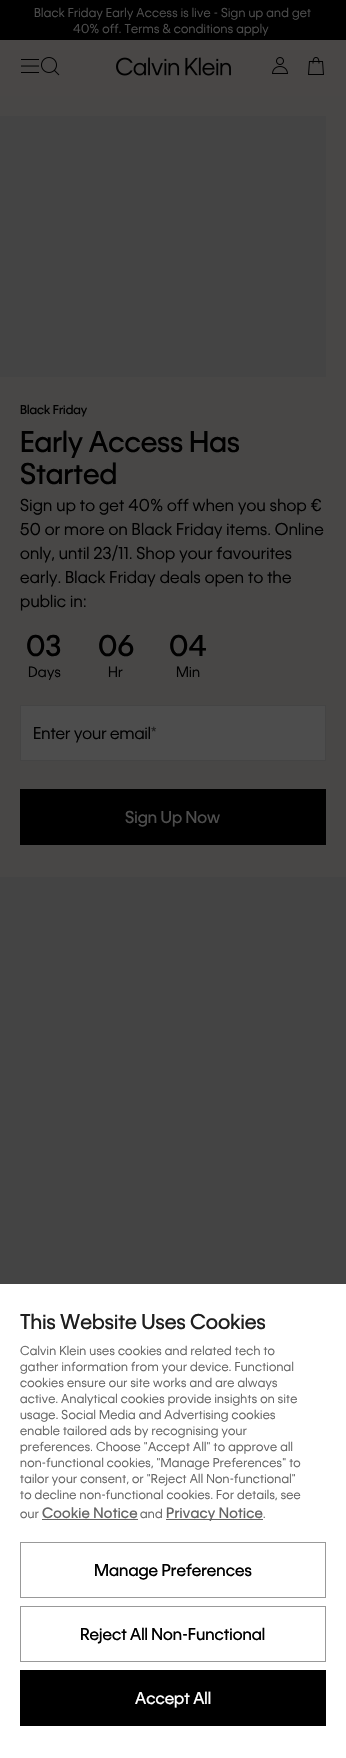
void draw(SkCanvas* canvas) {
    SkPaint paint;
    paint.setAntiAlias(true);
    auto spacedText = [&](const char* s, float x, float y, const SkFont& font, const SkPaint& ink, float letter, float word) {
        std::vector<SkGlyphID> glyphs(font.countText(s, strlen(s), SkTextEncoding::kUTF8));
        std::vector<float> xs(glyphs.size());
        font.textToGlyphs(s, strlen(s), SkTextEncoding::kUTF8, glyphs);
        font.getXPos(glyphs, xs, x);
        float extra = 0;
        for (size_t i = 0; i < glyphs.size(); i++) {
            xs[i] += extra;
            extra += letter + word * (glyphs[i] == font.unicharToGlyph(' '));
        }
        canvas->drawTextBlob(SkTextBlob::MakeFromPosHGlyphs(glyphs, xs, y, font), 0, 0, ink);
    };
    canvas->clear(0xFF000000);
    SkFont font1(fontMgr->matchFamilyStyle("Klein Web", SkFontStyle::Normal()), 12);
    font1.setSubpixel(true);
    paint.setColor(0xFF4D4D4D);
    spacedText("Black Friday Early Access is live - Sign up and get", 34, 17, font1, paint, 0.25f, 0);
    spacedText("40% off. Terms & conditions apply", 73, 33, font1, paint, 0.25f, 0);
    paint.setColor(0xFF494746);
    canvas->drawRect(SkRect::MakeXYWH(0, 40, 346, 56), paint);
    canvas->drawImageRect(SkImages::DeferredFromEncodedData(SkData::MakeFromFileName("img1.png")), SkRect::MakeXYWH(21, 57, 39, 19), SkSamplingOptions());
    canvas->drawImageRect(SkImages::DeferredFromEncodedData(SkData::MakeFromFileName("img2.png")), SkRect::MakeXYWH(116, 57, 115, 19), SkSamplingOptions());
    canvas->drawImageRect(SkImages::DeferredFromEncodedData(SkData::MakeFromFileName("img3.png")), SkRect::MakeXYWH(272, 57, 16, 17), SkSamplingOptions());
    canvas->drawImageRect(SkImages::DeferredFromEncodedData(SkData::MakeFromFileName("img4.png")), SkRect::MakeXYWH(308, 57, 16, 18), SkSamplingOptions());
    paint.setColor(0xFF484746);
    canvas->drawRect(SkRect::MakeXYWH(0, 96, 346, 781), paint);
    paint.setColor(0xFF444444);
    canvas->drawRect(SkRect::MakeXYWH(0, 116, 326, 261), paint);
    SkFont font2(fontMgr->matchFamilyStyle("Klein Web", SkFontStyle(500, SkFontStyle::kNormal_Width, SkFontStyle::kUpright_Slant)), 12);
    font2.setSubpixel(true);
    paint.setColor(0xFF000000);
    canvas->drawString("Black Friday", 20, 414, font2, paint);
    SkFont font3(fontMgr->matchFamilyStyle("Klein Web", SkFontStyle(500, SkFontStyle::kNormal_Width, SkFontStyle::kUpright_Slant)), 28);
    font3.setSubpixel(true);
    canvas->drawString("Early Access Has", 20, 452, font3, paint);
    canvas->drawString("Started", 20, 484, font3, paint);
    SkFont font4(fontMgr->matchFamilyStyle("Klein Web", SkFontStyle::Normal()), 16);
    font4.setSubpixel(true);
    spacedText("Sign up to get 40% off when you shop €", 20, 511, font4, paint, 0.25f, 0);
    spacedText("50 or more on Black Friday items. Online", 20, 535, font4, paint, 0.25f, 0);
    spacedText("only, until 23/11. Shop your favourites", 20, 559, font4, paint, 0.25f, 0);
    spacedText("early. Black Friday deals open to the", 20, 583, font4, paint, 0.25f, 0);
    spacedText("public in:", 20, 607, font4, paint, 0.25f, 0);
    canvas->drawString("03", 26, 656, font3, paint);
    SkFont font5(fontMgr->matchFamilyStyle("Klein Web", SkFontStyle::Normal()), 14);
    font5.setSubpixel(true);
    spacedText("Days", 28, 677, font5, paint, 0.25f, 0);
    canvas->drawString("06", 98, 656, font3, paint);
    spacedText("Hr", 108, 677, font5, paint, 0.25f, 0);
    canvas->drawString("04", 169, 656, font3, paint);
    spacedText("Min", 176, 677, font5, paint, 0.25f, 0);
    paint.setColor(0xFF4D4D4D);
    canvas->drawRect(SkRect::MakeXYWH(20.5f, 705.5f, 305, 55), paint);
    paint.setStyle(SkPaint::kStroke_Style);
    paint.setStrokeWidth(1);
    paint.setColor(0xFF444444);
    canvas->drawRect(SkRect::MakeXYWH(20.5f, 705.5f, 305, 55), paint);
    paint.setStyle(SkPaint::kFill_Style);
    paint.setColor(0xFF000000);
    canvas->drawString("Enter your email", 33, 739, font4, paint);
    paint.setColor(0xFF1F1F1F);
    canvas->drawString("*", 151, 739, font4, paint);
    paint.setColor(0xFF000000);
    canvas->drawRect(SkRect::MakeXYWH(20, 789, 306, 56), paint);
    SkFont font6(fontMgr->matchFamilyStyle("Klein Web", SkFontStyle(500, SkFontStyle::kNormal_Width, SkFontStyle::kUpright_Slant)), 16);
    font6.setSubpixel(true);
    paint.setColor(0xFF4D4D4D);
    canvas->drawString("Sign Up Now", 125, 823, font6, paint);
    paint.setColor(0xFF444444);
    canvas->drawRect(SkRect::MakeXYWH(0, 877, 346, 407), paint);
    paint.setColor(0xFFFFFFFF);
    canvas->drawRect(SkRect::MakeXYWH(0, 1284, 346, 474), paint);
    SkFont font7(fontMgr->matchFamilyStyle("Klein Web", SkFontStyle(500, SkFontStyle::kNormal_Width, SkFontStyle::kUpright_Slant)), 20);
    font7.setSubpixel(true);
    paint.setColor(0xFF1F1F1F);
    canvas->drawString("This Website Uses Cookies", 20, 1329, font7, paint);
    paint.setColor(0xFF666666);
    spacedText("Calvin Klein uses cookies and related tech to", 20, 1355, font1, paint, 0.25f, 0);
    spacedText("gather information from your device. Functional", 20, 1371, font1, paint, 0.25f, 0);
    spacedText("cookies ensure our site works and are always", 20, 1387, font1, paint, 0.25f, 0);
    spacedText("active. Analytical cookies provide insights on site", 20, 1403, font1, paint, 0.25f, 0);
    spacedText("usage. Social Media and Advertising cookies", 20, 1419, font1, paint, 0.25f, 0);
    spacedText("enable tailored ads by recognising your", 20, 1435, font1, paint, 0.25f, 0);
    spacedText("preferences. Choose \"Accept All\" to approve all", 20, 1451, font1, paint, 0.25f, 0);
    spacedText("non-functional cookies, \"Manage Preferences\" to", 20, 1467, font1, paint, 0.25f, 0);
    spacedText("tailor your consent, or \"Reject All Non-functional\"", 20, 1483, font1, paint, 0.25f, 0);
    spacedText("to decline non-functional cookies. For details, see", 20, 1499, font1, paint, 0.25f, 0);
    spacedText("our", 20, 1518, font1, paint, 0.25f, 0);
    SkFont font8(fontMgr->matchFamilyStyle("Klein Web", SkFontStyle(500, SkFontStyle::kNormal_Width, SkFontStyle::kUpright_Slant)), 14);
    font8.setSubpixel(true);
    spacedText("Cookie Notice", 42, 1518, font8, paint, 0.25f, 0);
    canvas->drawRect(SkRect::MakeXYWH(42, 1519, 96, 1), paint);
    spacedText("and", 140, 1518, font1, paint, 0.25f, 0);
    canvas->drawRect(SkRect::MakeXYWH(166, 1519, 97, 1), paint);
    spacedText("Privacy Notice", 166, 1518, font8, paint, 0.25f, 0);
    spacedText(".", 263, 1518, font1, paint, 0.25f, 0);
    paint.setStyle(SkPaint::kStroke_Style);
    paint.setColor(0xFF999999);
    canvas->drawRect(SkRect::MakeXYWH(20.5f, 1542.5f, 305, 55), paint);
    paint.setStyle(SkPaint::kFill_Style);
    paint.setColor(0xFF000000);
    canvas->drawString("Manage Preferences", 94, 1576, font6, paint);
    paint.setStyle(SkPaint::kStroke_Style);
    paint.setColor(0xFF999999);
    canvas->drawRect(SkRect::MakeXYWH(20.5f, 1606.5f, 305, 55), paint);
    paint.setStyle(SkPaint::kFill_Style);
    paint.setColor(0xFF000000);
    canvas->drawString("Reject All Non-Functional", 80, 1640, font6, paint);
    canvas->drawRect(SkRect::MakeXYWH(20, 1670, 306, 56), paint);
    paint.setColor(0xFFFFFFFF);
    canvas->drawString("Accept All", 135, 1704, font6, paint);
}
